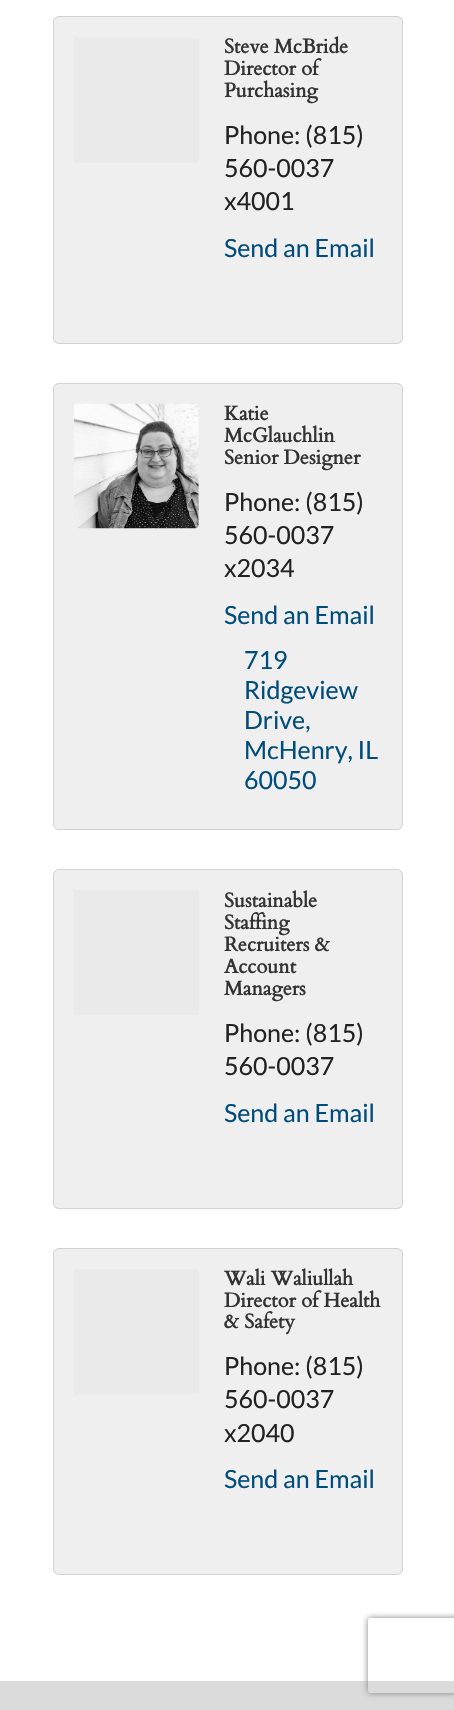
void draw(SkCanvas* canvas) {
    SkPaint paint;
    paint.setAntiAlias(true);
    canvas->clear(0xFFFFFFFF);
    paint.setColor(0xFFEFEFEF);
    canvas->drawRoundRect(SkRect::MakeXYWH(53, 16, 350, 328), 6, 6, paint);
    paint.setStyle(SkPaint::kStroke_Style);
    paint.setStrokeWidth(1);
    paint.setColor(0x1F000000);
    canvas->drawRoundRect(SkRect::MakeXYWH(53.5f, 16.5f, 349, 327), 5.5f, 5.5f, paint);
    paint.setStyle(SkPaint::kFill_Style);
    paint.setColor(0xFFEAEAEA);
    canvas->drawRect(SkRect::MakeXYWH(74, 38, 125, 125), paint);
    SkFont font1(fontMgr->matchFamilyStyle("Cardo", SkFontStyle::Bold()), 20);
    font1.setSubpixel(true);
    paint.setColor(0xFF333333);
    canvas->drawString("Steve McBride", 224, 53, font1, paint);
    canvas->drawString("Director of", 224, 75, font1, paint);
    canvas->drawString("Purchasing", 224, 97, font1, paint);
    SkFont font2(fontMgr->matchFamilyStyle("Lato", SkFontStyle::Normal()), 25);
    font2.setSubpixel(true);
    paint.setColor(0xFF222222);
    canvas->drawString("Phone: (815)", 224, 144, font2, paint);
    canvas->drawString("560-0037", 224, 177, font2, paint);
    canvas->drawString("x4001", 224, 210, font2, paint);
    paint.setColor(0xFF004C7C);
    canvas->drawString("Send an Email", 224, 257, font2, paint);
    paint.setColor(0xFFEFEFEF);
    canvas->drawRoundRect(SkRect::MakeXYWH(53, 383, 350, 447), 6, 6, paint);
    paint.setStyle(SkPaint::kStroke_Style);
    paint.setColor(0x1F000000);
    canvas->drawRoundRect(SkRect::MakeXYWH(53.5f, 383.5f, 349, 446), 5.5f, 5.5f, paint);
    canvas->drawImageRect(SkImages::DeferredFromEncodedData(SkData::MakeFromFileName("img1.png")), SkRect::MakeXYWH(73, 403, 126, 126), SkSamplingOptions());
    paint.setStyle(SkPaint::kFill_Style);
    paint.setColor(0xFF333333);
    canvas->drawString("Katie", 224, 420, font1, paint);
    canvas->drawString("McGlauchlin", 224, 442, font1, paint);
    canvas->drawString("Senior Designer", 224, 464, font1, paint);
    paint.setColor(0xFF222222);
    canvas->drawString("Phone: (815)", 224, 511, font2, paint);
    canvas->drawString("560-0037", 224, 544, font2, paint);
    canvas->drawString("x2034", 224, 577, font2, paint);
    paint.setColor(0xFF004C7C);
    canvas->drawString("Send an Email", 224, 624, font2, paint);
    canvas->drawString("719", 244, 669, font2, paint);
    canvas->drawString("Ridgeview", 244, 699, font2, paint);
    canvas->drawString("Drive,", 244, 729, font2, paint);
    canvas->drawString("McHenry, IL", 244, 759, font2, paint);
    canvas->drawString("60050", 244, 789, font2, paint);
    paint.setColor(0xFFEFEFEF);
    canvas->drawRoundRect(SkRect::MakeXYWH(53, 869, 350, 340), 6, 6, paint);
    paint.setStyle(SkPaint::kStroke_Style);
    paint.setColor(0x1F000000);
    canvas->drawRoundRect(SkRect::MakeXYWH(53.5f, 869.5f, 349, 339), 5.5f, 5.5f, paint);
    paint.setStyle(SkPaint::kFill_Style);
    paint.setColor(0xFFEAEAEA);
    canvas->drawRect(SkRect::MakeXYWH(74, 890, 125, 125), paint);
    paint.setColor(0xFF333333);
    canvas->drawString("Sustainable", 224, 907, font1, paint);
    canvas->drawString("Staffing", 224, 929, font1, paint);
    canvas->drawString("Recruiters &", 224, 951, font1, paint);
    canvas->drawString("Account", 224, 973, font1, paint);
    canvas->drawString("Managers", 224, 995, font1, paint);
    paint.setColor(0xFF222222);
    canvas->drawString("Phone: (815)", 224, 1042, font2, paint);
    canvas->drawString("560-0037", 224, 1075, font2, paint);
    paint.setColor(0xFF004C7C);
    canvas->drawString("Send an Email", 224, 1122, font2, paint);
    paint.setColor(0xFFEFEFEF);
    canvas->drawRoundRect(SkRect::MakeXYWH(53, 1248, 350, 327), 6, 6, paint);
    paint.setStyle(SkPaint::kStroke_Style);
    paint.setColor(0x1F000000);
    canvas->drawRoundRect(SkRect::MakeXYWH(53.5f, 1248.5f, 349, 326), 5.5f, 5.5f, paint);
    paint.setStyle(SkPaint::kFill_Style);
    paint.setColor(0xFFEAEAEA);
    canvas->drawRect(SkRect::MakeXYWH(74, 1269, 125, 125), paint);
    paint.setColor(0xFF333333);
    canvas->drawString("Wali Waliullah", 224, 1285, font1, paint);
    canvas->drawString("Director of Health", 224, 1307, font1, paint);
    canvas->drawString("& Safety", 224, 1328, font1, paint);
    paint.setColor(0xFF222222);
    canvas->drawString("Phone: (815)", 224, 1375, font2, paint);
    canvas->drawString("560-0037", 224, 1408, font2, paint);
    canvas->drawString("x2040", 224, 1442, font2, paint);
    paint.setColor(0xFF004C7C);
    canvas->drawString("Send an Email", 224, 1488, font2, paint);
    paint.setColor(0xFFDBDBDB);
    canvas->drawRect(SkRect::MakeXYWH(0, 1681, 454, 29), paint);
    canvas->save();
    canvas->clipPath(SkPathBuilder(SkPathFillType::kEvenOdd).moveTo(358, 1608).lineTo(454, 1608).lineTo(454, 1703).lineTo(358, 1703).close().moveTo(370.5f, 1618).lineTo(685.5f, 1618).cubicTo(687, 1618, 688, 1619, 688, 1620.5f).lineTo(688, 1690.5f).cubicTo(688, 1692, 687, 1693, 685.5f, 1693).lineTo(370.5f, 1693).cubicTo(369, 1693, 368, 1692, 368, 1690.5f).lineTo(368, 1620.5f).cubicTo(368, 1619, 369, 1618, 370.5f, 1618).close().detach(), true);
    paint.setColor(0xFF808080);
    paint.setMaskFilter(SkMaskFilter::MakeBlur(kNormal_SkBlurStyle, 3));
    canvas->drawRoundRect(SkRect::MakeXYWH(368, 1618, 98, 75), 2.5f, 2.5f, paint);
    paint.setMaskFilter(nullptr);
    canvas->restore();
}
